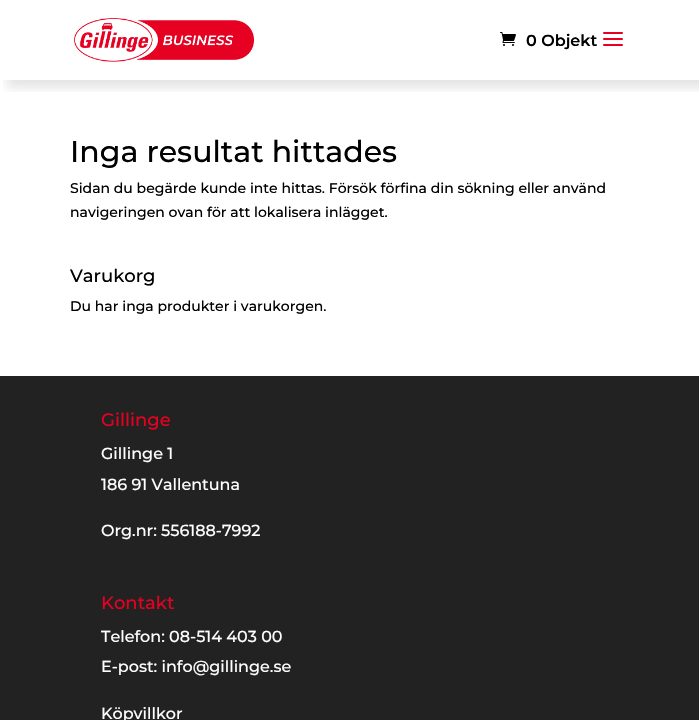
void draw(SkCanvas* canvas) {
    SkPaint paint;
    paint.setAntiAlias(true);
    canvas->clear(0xFFFFFFFF);
    canvas->save();
    canvas->clipRect(SkRect::MakeXYWH(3, 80, 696, 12));
    paint.setColor(0x1A000000);
    paint.setMaskFilter(SkMaskFilter::MakeBlur(kNormal_SkBlurStyle, 5));
    canvas->drawRect(SkRect::MakeXYWH(7, 6, 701, 82), paint);
    paint.setMaskFilter(nullptr);
    canvas->restore();
    canvas->drawImageRect(SkImages::DeferredFromEncodedData(SkData::MakeFromFileName("img1.png")), SkRect::MakeXYWH(74, 18, 180, 44), SkSamplingOptions());
    canvas->drawImageRect(SkImages::DeferredFromEncodedData(SkData::MakeFromFileName("img2.png")), SkRect::MakeXYWH(500, 32, 16, 14), SkSamplingOptions());
    SkFont font1(fontMgr->matchFamilyStyle("Montserrat", SkFontStyle(600, SkFontStyle::kNormal_Width, SkFontStyle::kUpright_Slant)), 16);
    font1.setSubpixel(true);
    paint.setColor(0xFF000000);
    canvas->drawString("0 Objekt", 526, 46, font1, paint);
    canvas->drawImageRect(SkImages::DeferredFromEncodedData(SkData::MakeFromFileName("img3.png")), SkRect::MakeXYWH(603, 32, 20, 14), SkSamplingOptions());
    SkFont font2(fontMgr->matchFamilyStyle("Montserrat", SkFontStyle(500, SkFontStyle::kNormal_Width, SkFontStyle::kUpright_Slant)), 30);
    font2.setSubpixel(true);
    canvas->drawString("Inga resultat hittades", 70, 162, font2, paint);
    SkFont font3(fontMgr->matchFamilyStyle("Montserrat", SkFontStyle(500, SkFontStyle::kNormal_Width, SkFontStyle::kUpright_Slant)), 14);
    font3.setSubpixel(true);
    canvas->drawString("Sidan du begärde kunde inte hittas. Försök förfina din sökning eller använd", 70, 193, font3, paint);
    canvas->drawString("navigeringen ovan för att lokalisera inlägget.", 70, 217, font3, paint);
    SkFont font4(fontMgr->matchFamilyStyle("Montserrat", SkFontStyle(500, SkFontStyle::kNormal_Width, SkFontStyle::kUpright_Slant)), 18);
    font4.setSubpixel(true);
    canvas->drawString("Varukorg", 70, 282, font4, paint);
    canvas->drawString("Du har inga produkter i varukorgen.", 70, 311, font3, paint);
    paint.setColor(0xFF222222);
    canvas->drawRect(SkRect::MakeXYWH(0, 376, 699, 344), paint);
    paint.setColor(0xFFE60022);
    canvas->drawString("Gillinge", 101, 426, font4, paint);
    SkFont font5(fontMgr->matchFamilyStyle("Montserrat", SkFontStyle(500, SkFontStyle::kNormal_Width, SkFontStyle::kUpright_Slant)), 16);
    font5.setSubpixel(true);
    paint.setColor(0xFFFFFFFF);
    canvas->drawString("Gillinge 1", 101, 459, font5, paint);
    canvas->drawString("186 91 Vallentuna", 101, 490, font5, paint);
    canvas->drawString("Org.nr: 556188-7992", 101, 536, font5, paint);
    paint.setColor(0xFFE60022);
    canvas->drawString("Kontakt", 101, 609, font4, paint);
    paint.setColor(0xFFFFFFFF);
    canvas->drawString("Telefon: 08-514 403 00", 101, 642, font5, paint);
    canvas->drawString("E-post: info@gillinge.se", 101, 672, font5, paint);
    canvas->drawString("Köpvillkor", 101, 719, font5, paint);
}
